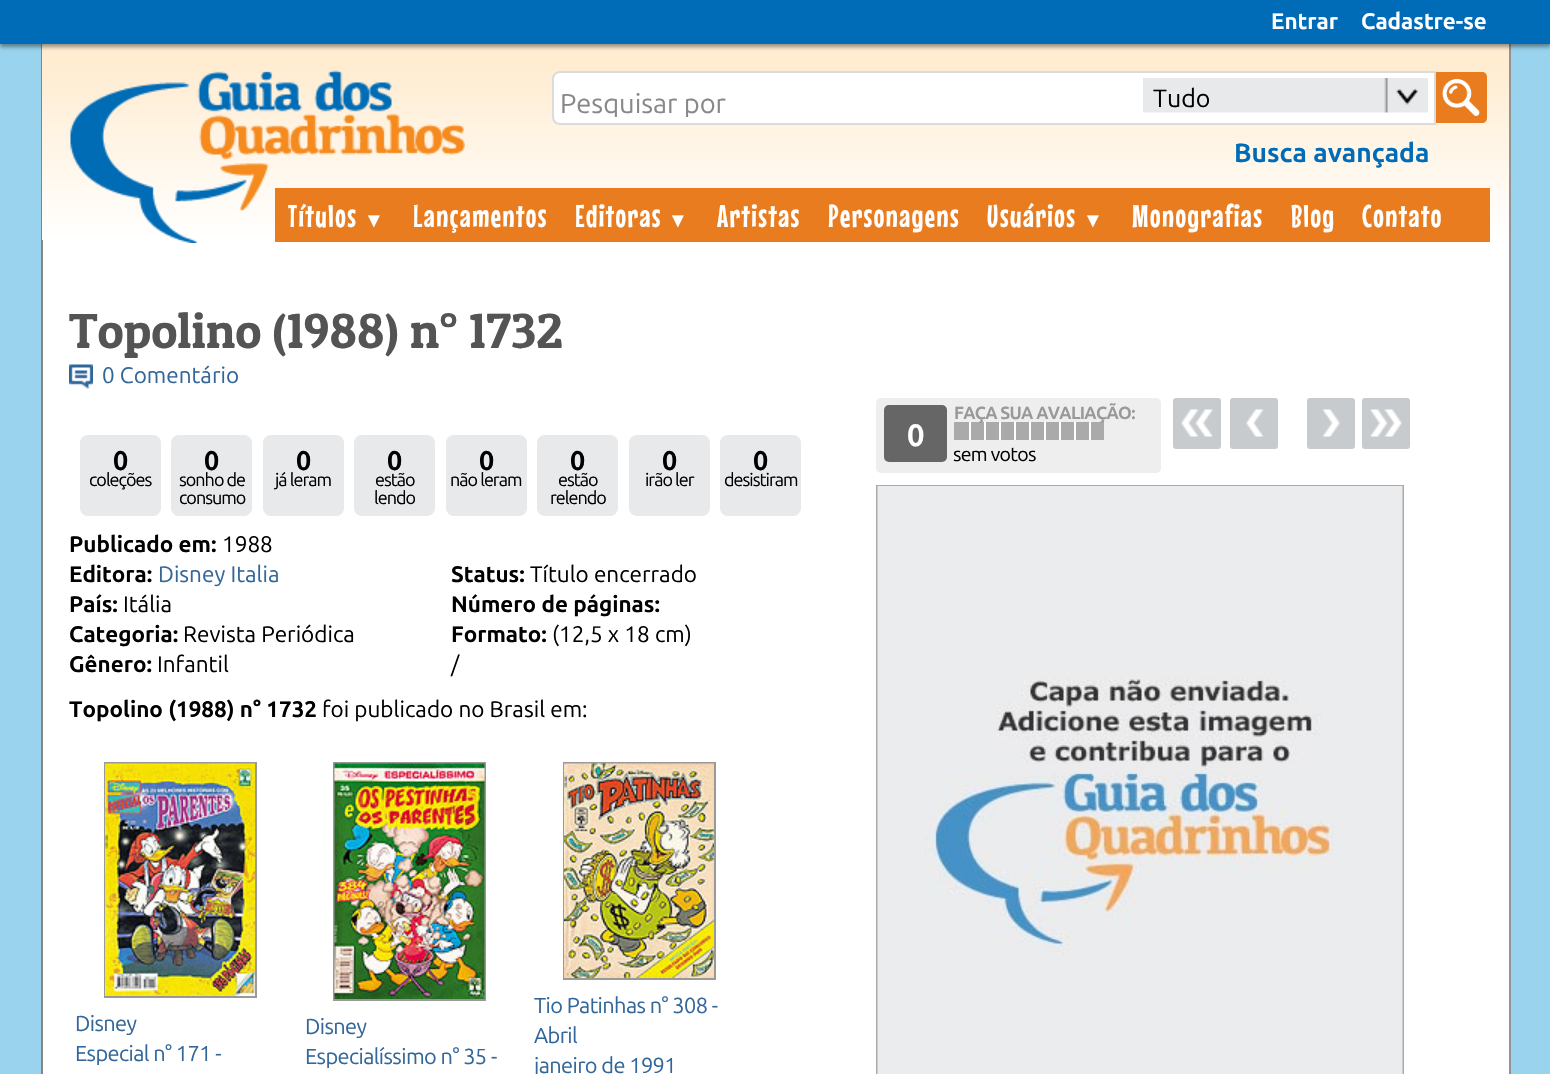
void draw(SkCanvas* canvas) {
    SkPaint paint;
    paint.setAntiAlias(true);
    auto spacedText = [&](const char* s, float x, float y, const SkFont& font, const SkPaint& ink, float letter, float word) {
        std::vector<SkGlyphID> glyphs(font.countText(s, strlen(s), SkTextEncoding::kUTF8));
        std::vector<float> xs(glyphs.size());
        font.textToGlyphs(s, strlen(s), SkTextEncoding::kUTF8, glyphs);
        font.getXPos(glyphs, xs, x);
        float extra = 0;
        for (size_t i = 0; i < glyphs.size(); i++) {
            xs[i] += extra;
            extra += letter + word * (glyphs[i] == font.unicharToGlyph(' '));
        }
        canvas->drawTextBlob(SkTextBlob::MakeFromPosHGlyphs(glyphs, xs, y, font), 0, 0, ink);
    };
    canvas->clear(0xFF99D3ED);
    paint.setColor(0xFF939393);
    canvas->drawRect(SkRect::MakeXYWH(1509, 44, 2, 1030), paint);
    paint.setColor(0xFF848484);
    canvas->drawRect(SkRect::MakeXYWH(41, 44, 2, 1030), paint);
    {
        const SkColor colors[] = {0xFFFFECD1, 0xFFFFFFFF};
        const float stops[] = {0.1f, 1};
        const SkPoint ends[] = {{42, 44}, {42, 240}};
        paint.setShader(SkGradientShader::MakeLinear(ends, colors, stops, 2, SkTileMode::kClamp));
        paint.setAlpha(255);
    }
    canvas->drawRect(SkRect::MakeXYWH(42, 44, 1467, 196), paint);
    paint.setShader(nullptr);
    paint.setColor(0x66000000);
    paint.setMaskFilter(SkMaskFilter::MakeBlur(kNormal_SkBlurStyle, 2));
    canvas->drawRect(SkRect::MakeXYWH(0, 3, 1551, 44), paint);
    paint.setMaskFilter(nullptr);
    paint.setColor(0xFF006BB7);
    canvas->drawRect(SkRect::MakeXYWH(0, 0, 1550, 44), paint);
    SkFont font1(fontMgr->matchFamilyStyle("Ubuntu", SkFontStyle::Bold()), 22.5f);
    font1.setSubpixel(true);
    paint.setColor(0xFFFFFFFF);
    canvas->drawString("Entrar", 1271, 29, font1, paint);
    canvas->drawString("Cadastre-se", 1361, 29, font1, paint);
    canvas->drawRect(SkRect::MakeXYWH(43, 240, 1466, 834), paint);
    canvas->drawImageRect(SkImages::DeferredFromEncodedData(SkData::MakeFromFileName("img1.png")), SkRect::MakeXYWH(70, 70, 395, 173), SkSamplingOptions());
    canvas->drawPath(SkPathBuilder().moveTo(560, 72).lineTo(1435, 72).lineTo(1435, 124).lineTo(560, 124).cubicTo(556, 124, 553, 121, 553, 117).lineTo(553, 79).cubicTo(553, 75, 556, 72, 560, 72).close().detach(), paint);
    paint.setStyle(SkPaint::kStroke_Style);
    paint.setStrokeWidth(2);
    paint.setColor(0xFFDBDBDB);
    canvas->drawPath(SkPathBuilder().moveTo(560, 72).lineTo(1435, 72).lineTo(1435, 124).lineTo(560, 124).cubicTo(556, 124, 553, 121, 553, 117).lineTo(553, 79).cubicTo(553, 75, 556, 72, 560, 72).close().detach(), paint);
    canvas->save();
    canvas->clipPath(SkPathBuilder().moveTo(563, 87).lineTo(1112, 87).cubicTo(1113.5f, 87, 1115, 88.5f, 1115, 90).lineTo(1115, 114).cubicTo(1115, 115.5f, 1113.5f, 117, 1112, 117).lineTo(563, 117).cubicTo(561.5f, 117, 560, 115.5f, 560, 114).lineTo(560, 90).cubicTo(560, 88.5f, 561.5f, 87, 563, 87).close().detach(), true);
    SkFont font2(fontMgr->matchFamilyStyle("Ubuntu", SkFontStyle::Normal()), 27.25f);
    font2.setSubpixel(true);
    paint.setStyle(SkPaint::kFill_Style);
    paint.setColor(0xFF888888);
    canvas->drawString("Pesquisar por", 560, 113, font2, paint);
    canvas->restore();
    canvas->drawImageRect(SkImages::DeferredFromEncodedData(SkData::MakeFromFileName("img2.png")), SkRect::MakeXYWH(1143, 78, 285, 35), SkSamplingOptions());
    SkFont font3(fontMgr->matchFamilyStyle("Ubuntu", SkFontStyle::Normal()), 25);
    font3.setSubpixel(true);
    paint.setColor(0xFF000000);
    canvas->drawString("Tudo", 1153, 107, font3, paint);
    paint.setColor(0xFFE87C1F);
    canvas->drawPath(SkPathBuilder().moveTo(1436, 72).lineTo(1482, 72).cubicTo(1485, 72, 1487, 74, 1487, 77).lineTo(1487, 118).cubicTo(1487, 121, 1485, 123, 1482, 123).lineTo(1436, 123).close().detach(), paint);
    canvas->drawImageRect(SkImages::DeferredFromEncodedData(SkData::MakeFromFileName("img3.png")), SkRect::MakeXYWH(1442, 78, 38, 39), SkSamplingOptions());
    SkFont font4(fontMgr->matchFamilyStyle("Ubuntu", SkFontStyle::Bold()), 26.5f);
    font4.setSubpixel(true);
    paint.setColor(0xFF006BB7);
    canvas->drawString("Busca avançada", 1234, 162, font4, paint);
    paint.setColor(0xFFE87C1F);
    canvas->drawRect(SkRect::MakeXYWH(275, 188, 1215, 54), paint);
    SkFont font5(fontMgr->matchFamilyStyle("Mouse Memoirs", SkFontStyle::Normal()), 31.5f);
    font5.setSubpixel(true);
    paint.setColor(0xFFFFFFFF);
    spacedText("Títulos", 288, 227, font5, paint, 1.5f, 0);
    SkFont font6(fontMgr->matchFamilyStyle("Liberation Serif", SkFontStyle::Normal()), 20);
    font6.setSubpixel(true);
    spacedText("▼", 364, 227, font6, paint, 1.5f, 0);
    spacedText("Lançamentos", 413, 227, font5, paint, 1.5f, 0);
    spacedText("Editoras", 575, 227, font5, paint, 1.5f, 0);
    spacedText("▼", 668, 227, font6, paint, 1.5f, 0);
    spacedText("Artistas", 717, 227, font5, paint, 1.5f, 0);
    spacedText("Personagens", 828, 227, font5, paint, 1.5f, 0);
    spacedText("Usuários", 987, 227, font5, paint, 1.5f, 0);
    spacedText("▼", 1083, 227, font6, paint, 1.5f, 0);
    spacedText("Monografias", 1132, 227, font5, paint, 1.5f, 0);
    spacedText("Blog", 1291, 227, font5, paint, 1.5f, 0);
    spacedText("Contato", 1362, 227, font5, paint, 1.5f, 0);
    SkFont font7(fontMgr->matchFamilyStyle("Patua One", SkFontStyle::Normal()), 49.5f);
    font7.setSubpixel(true);
    paint.setColor(0xFF545454);
    canvas->drawString("Topolino (1988) n° 1732", 69, 348, font7, paint);
    canvas->drawImageRect(SkImages::DeferredFromEncodedData(SkData::MakeFromFileName("img4.png")), SkRect::MakeXYWH(69, 364, 24, 25), SkSamplingOptions());
    SkFont font8(fontMgr->matchFamilyStyle("Ubuntu", SkFontStyle::Normal()), 22.5f);
    font8.setSubpixel(true);
    paint.setColor(0xFF336699);
    canvas->drawString("0 Comentário", 102, 383, font8, paint);
    paint.setColor(0xFFE7E9EA);
    canvas->drawRoundRect(SkRect::MakeXYWH(80, 435, 81, 81), 8, 8, paint);
    SkFont font9(fontMgr->matchFamilyStyle("Ubuntu", SkFontStyle::Bold()), 27);
    font9.setSubpixel(true);
    paint.setColor(0xFF000000);
    spacedText("0", 113, 470, font9, paint, -1, 0);
    SkFont font10(fontMgr->matchFamilyStyle("Ubuntu", SkFontStyle::Normal()), 18);
    font10.setSubpixel(true);
    spacedText("coleções", 89, 486, font10, paint, -1, 0);
    paint.setColor(0xFFE7E9EA);
    canvas->drawRoundRect(SkRect::MakeXYWH(171, 435, 81, 81), 8, 8, paint);
    paint.setColor(0xFF000000);
    spacedText("0", 204, 470, font9, paint, -1, 0);
    spacedText("sonho de", 179, 486, font10, paint, -1, 0);
    spacedText("consumo", 179, 504, font10, paint, -1, 0);
    paint.setColor(0xFFE7E9EA);
    canvas->drawRoundRect(SkRect::MakeXYWH(263, 435, 81, 81), 8, 8, paint);
    paint.setColor(0xFF000000);
    spacedText("0", 296, 470, font9, paint, -1, 0);
    spacedText("já leram", 275, 486, font10, paint, -1, 0);
    paint.setColor(0xFFE7E9EA);
    canvas->drawRoundRect(SkRect::MakeXYWH(354, 435, 81, 81), 8, 8, paint);
    paint.setColor(0xFF000000);
    spacedText("0", 387, 470, font9, paint, -1, 0);
    spacedText("estão", 375, 486, font10, paint, -1, 0);
    spacedText("lendo", 374, 504, font10, paint, -1, 0);
    paint.setColor(0xFFE7E9EA);
    canvas->drawRoundRect(SkRect::MakeXYWH(446, 435, 81, 81), 8, 8, paint);
    paint.setColor(0xFF000000);
    spacedText("0", 479, 470, font9, paint, -1, 0);
    spacedText("não leram", 450, 486, font10, paint, -1, 0);
    paint.setColor(0xFFE7E9EA);
    canvas->drawRoundRect(SkRect::MakeXYWH(537, 435, 81, 81), 8, 8, paint);
    paint.setColor(0xFF000000);
    spacedText("0", 570, 470, font9, paint, -1, 0);
    spacedText("estão", 558, 486, font10, paint, -1, 0);
    spacedText("relendo", 550, 504, font10, paint, -1, 0);
    paint.setColor(0xFFE7E9EA);
    canvas->drawRoundRect(SkRect::MakeXYWH(629, 435, 81, 81), 8, 8, paint);
    paint.setColor(0xFF000000);
    spacedText("0", 662, 470, font9, paint, -1, 0);
    spacedText("irão ler", 645, 486, font10, paint, -1, 0);
    paint.setColor(0xFFE7E9EA);
    canvas->drawRoundRect(SkRect::MakeXYWH(720, 435, 81, 81), 8, 8, paint);
    paint.setColor(0xFF000000);
    spacedText("0", 753, 470, font9, paint, -1, 0);
    spacedText("desistiram", 724, 486, font10, paint, -1, 0);
    canvas->drawString("Publicado em:", 69, 552, font1, paint);
    canvas->drawString("1988", 222, 552, font8, paint);
    canvas->drawString("Editora:", 69, 582, font1, paint);
    paint.setColor(0xFF336699);
    canvas->drawString("Disney Italia", 158, 582, font8, paint);
    paint.setColor(0xFF000000);
    canvas->drawString("País:", 69, 612, font1, paint);
    canvas->drawString("Itália", 123, 612, font8, paint);
    canvas->drawString("Categoria:", 69, 642, font1, paint);
    canvas->drawString("Revista Periódica", 183, 642, font8, paint);
    canvas->drawString("Gênero:", 69, 672, font1, paint);
    canvas->drawString("Infantil", 157, 672, font8, paint);
    canvas->drawString("Status:", 451, 582, font1, paint);
    canvas->drawString("Título encerrado", 530, 582, font8, paint);
    canvas->drawString("Número de páginas:", 451, 612, font1, paint);
    canvas->drawString("Formato:", 451, 642, font1, paint);
    canvas->drawString("(12,5 x 18 cm)", 552, 642, font8, paint);
    canvas->drawString("/", 451, 672, font8, paint);
    canvas->drawString("Topolino (1988) n° 1732", 69, 717, font1, paint);
    canvas->drawString("foi publicado no Brasil em:", 322, 717, font8, paint);
    paint.setStyle(SkPaint::kStroke_Style);
    paint.setColor(0xFF999999);
    canvas->drawRect(SkRect::MakeXYWH(105, 763, 151, 234), paint);
    canvas->drawImageRect(SkImages::DeferredFromEncodedData(SkData::MakeFromFileName("img5.png")), SkRect::MakeXYWH(105, 763, 150, 233), SkSamplingOptions());
    SkFont font11(fontMgr->matchFamilyStyle("Ubuntu", SkFontStyle::Normal()), 21.75f);
    font11.setSubpixel(true);
    paint.setStyle(SkPaint::kFill_Style);
    paint.setColor(0xFF336699);
    spacedText("Disney", 75, 1031, font11, paint, -0.6f, 0);
    spacedText("Especial n° 171 -", 75, 1061, font11, paint, -0.6f, 0);
    paint.setStyle(SkPaint::kStroke_Style);
    paint.setColor(0xFF999999);
    canvas->drawRect(SkRect::MakeXYWH(334, 763, 151, 237), paint);
    canvas->drawImageRect(SkImages::DeferredFromEncodedData(SkData::MakeFromFileName("img6.png")), SkRect::MakeXYWH(334, 763, 151, 236), SkSamplingOptions());
    paint.setStyle(SkPaint::kFill_Style);
    paint.setColor(0xFF336699);
    spacedText("Disney", 305, 1034, font11, paint, -0.6f, 0);
    spacedText("Especialíssimo n° 35 -", 305, 1064, font11, paint, -0.6f, 0);
    paint.setStyle(SkPaint::kStroke_Style);
    paint.setColor(0xFF999999);
    canvas->drawRect(SkRect::MakeXYWH(564, 763, 151, 216), paint);
    canvas->drawImageRect(SkImages::DeferredFromEncodedData(SkData::MakeFromFileName("img7.png")), SkRect::MakeXYWH(564, 763, 150, 215), SkSamplingOptions());
    paint.setStyle(SkPaint::kFill_Style);
    paint.setColor(0xFF336699);
    spacedText("Tio Patinhas n° 308 -", 534, 1013, font11, paint, -0.6f, 0);
    spacedText("Abril", 534, 1043, font11, paint, -0.6f, 0);
    spacedText("janeiro de 1991", 534, 1073, font11, paint, -0.6f, 0);
    paint.setColor(0xFFEEEEEE);
    canvas->drawRoundRect(SkRect::MakeXYWH(876, 398, 285, 75), 5, 5, paint);
    paint.setColor(0xFFAAAAAA);
    canvas->drawRect(SkRect::MakeXYWH(954, 422, 150, 18), paint);
    paint.setColor(0xFFFFFFFF);
    canvas->drawRect(SkRect::MakeXYWH(969, 422, 2, 18), paint);
    canvas->drawRect(SkRect::MakeXYWH(984, 422, 2, 18), paint);
    canvas->drawRect(SkRect::MakeXYWH(999, 422, 2, 18), paint);
    canvas->drawRect(SkRect::MakeXYWH(1014, 422, 2, 18), paint);
    canvas->drawRect(SkRect::MakeXYWH(1029, 422, 2, 18), paint);
    canvas->drawRect(SkRect::MakeXYWH(1044, 422, 2, 18), paint);
    canvas->drawRect(SkRect::MakeXYWH(1059, 422, 2, 18), paint);
    canvas->drawRect(SkRect::MakeXYWH(1074, 422, 2, 18), paint);
    canvas->drawRect(SkRect::MakeXYWH(1089, 422, 2, 18), paint);
    SkFont font12(fontMgr->matchFamilyStyle("Ubuntu", SkFontStyle::Bold()), 17.5f);
    font12.setSubpixel(true);
    paint.setColor(0xFF999999);
    spacedText("FAÇA SUA AVALIAÇÃO:", 954, 419, font12, paint, -0.7f, 0);
    paint.setColor(0xFF666666);
    canvas->drawRoundRect(SkRect::MakeXYWH(884, 405, 63, 57), 5, 5, paint);
    SkFont font13(fontMgr->matchFamilyStyle("Ubuntu", SkFontStyle::Bold()), 31);
    font13.setSubpixel(true);
    paint.setColor(0xFFFFFFFF);
    spacedText("0", 907, 446, font13, paint, -0.7f, 0);
    SkFont font14(fontMgr->matchFamilyStyle("Ubuntu", SkFontStyle::Normal()), 19.5f);
    font14.setSubpixel(true);
    paint.setColor(0xFF000000);
    spacedText("sem votos", 953, 461, font14, paint, -0.7f, 0);
    paint.setColor(0xFFC8CBCD);
    canvas->drawRoundRect(SkRect::MakeXYWH(1173, 398, 48, 51), 3, 3, paint);
    canvas->drawImageRect(SkImages::DeferredFromEncodedData(SkData::MakeFromFileName("img8.png")), SkRect::MakeXYWH(1181, 409, 32, 28), SkSamplingOptions());
    canvas->drawRoundRect(SkRect::MakeXYWH(1230, 398, 48, 51), 3, 3, paint);
    canvas->drawImageRect(SkImages::DeferredFromEncodedData(SkData::MakeFromFileName("img9.png")), SkRect::MakeXYWH(1246, 409, 18, 28), SkSamplingOptions());
    canvas->drawRoundRect(SkRect::MakeXYWH(1307, 398, 48, 51), 3, 3, paint);
    canvas->drawImageRect(SkImages::DeferredFromEncodedData(SkData::MakeFromFileName("img10.png")), SkRect::MakeXYWH(1322, 409, 18, 28), SkSamplingOptions());
    canvas->drawRoundRect(SkRect::MakeXYWH(1362, 398, 48, 51), 3, 3, paint);
    canvas->drawImageRect(SkImages::DeferredFromEncodedData(SkData::MakeFromFileName("img11.png")), SkRect::MakeXYWH(1370, 409, 32, 28), SkSamplingOptions());
    paint.setStyle(SkPaint::kStroke_Style);
    paint.setColor(0xFFAAAAAA);
    canvas->drawRect(SkRect::MakeXYWH(877, 486, 526, 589), paint);
    canvas->drawImageRect(SkImages::DeferredFromEncodedData(SkData::MakeFromFileName("img12.png")), SkRect::MakeXYWH(877, 486, 526, 588), SkSamplingOptions());
}
